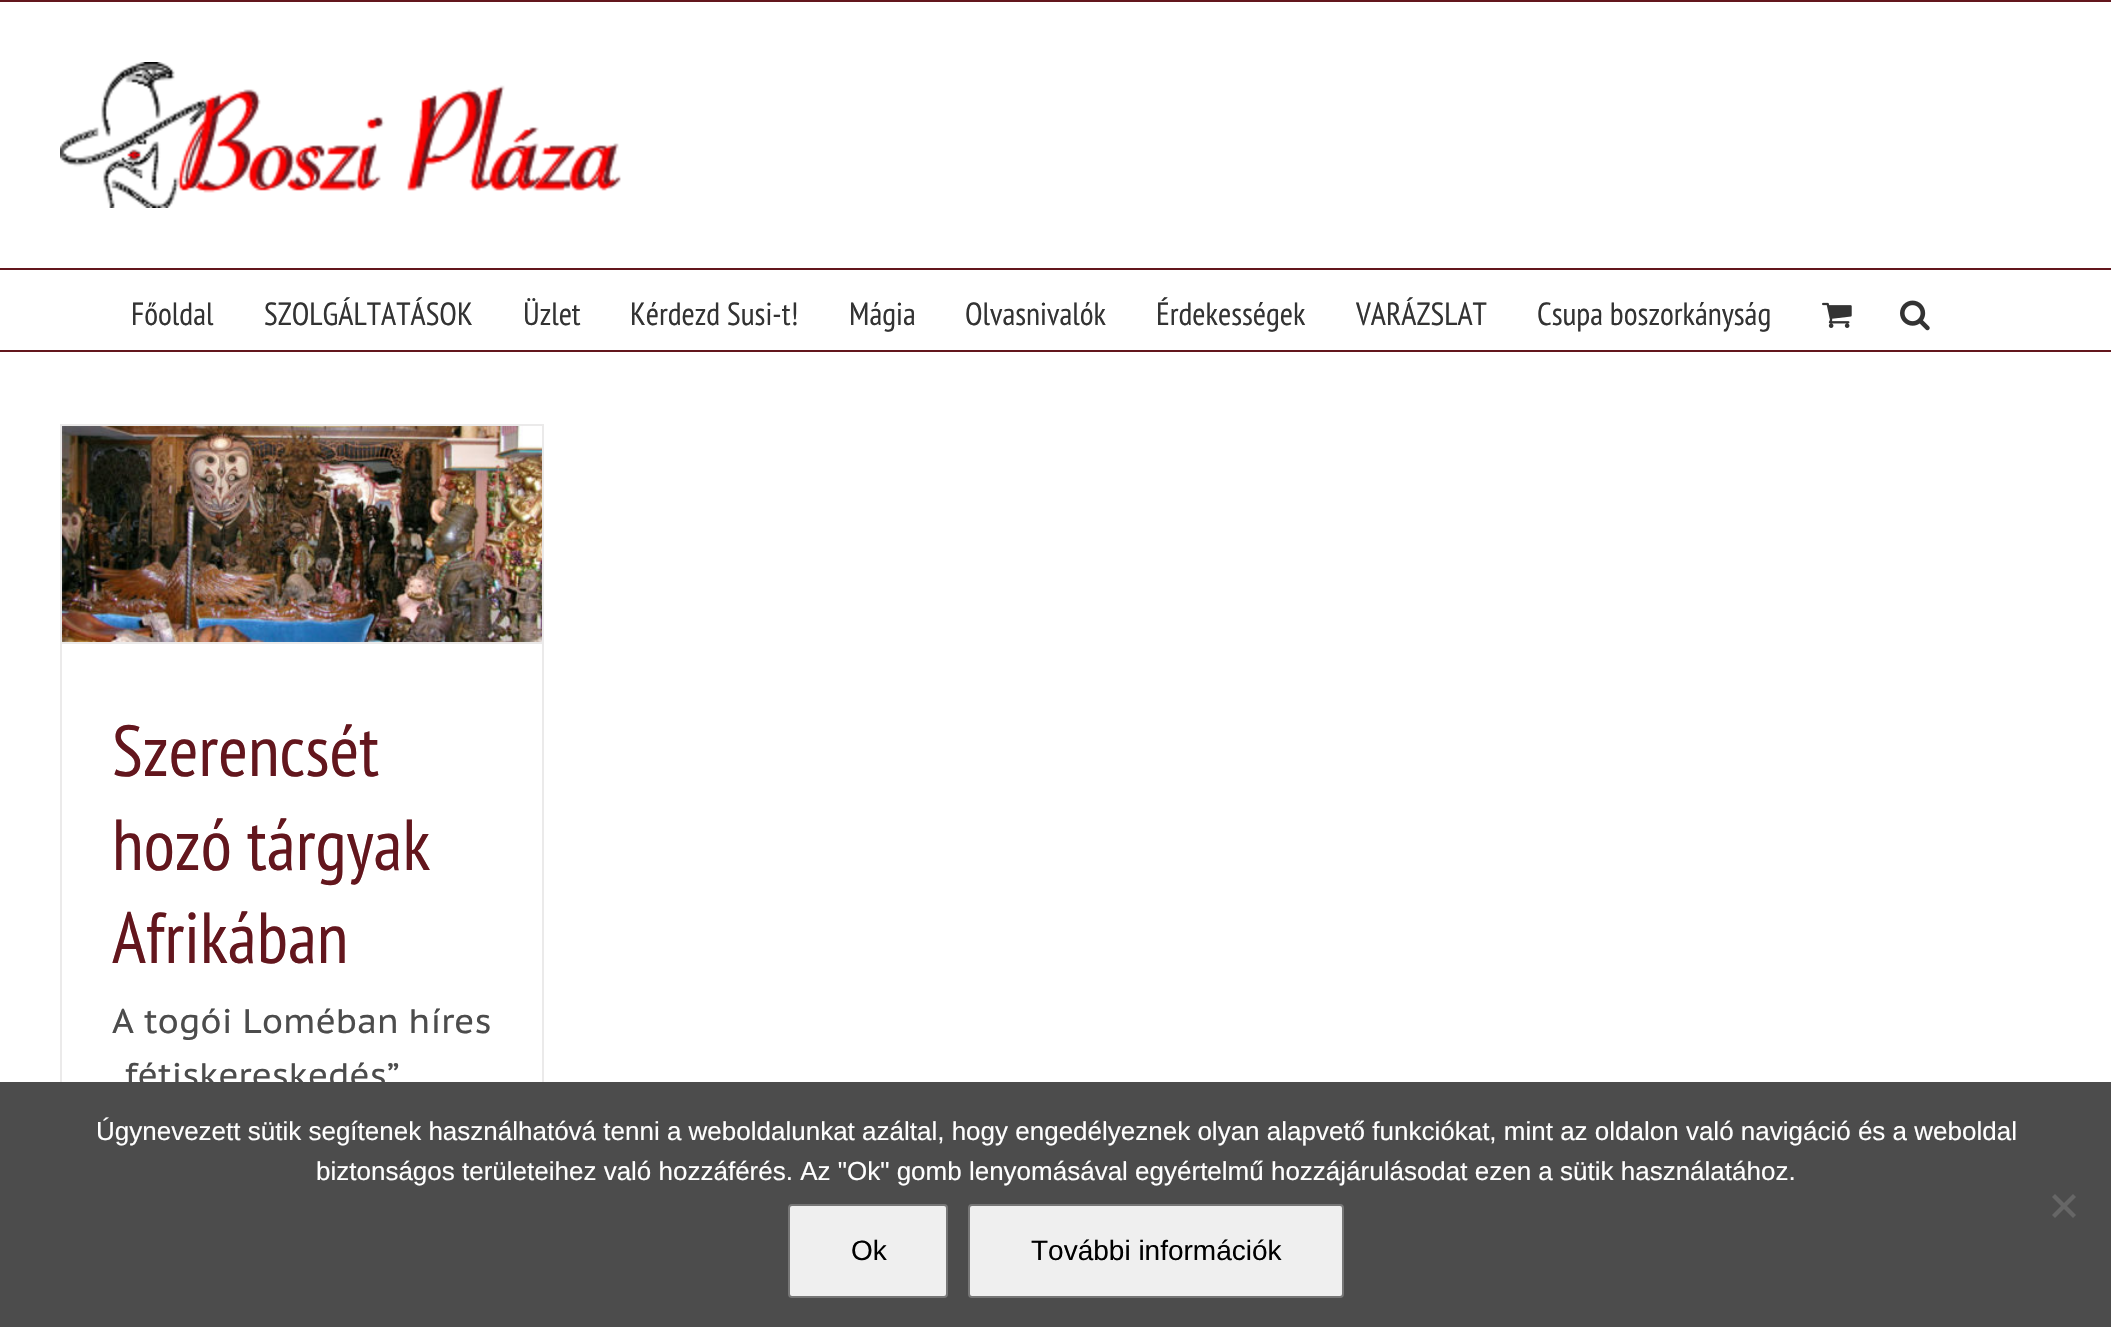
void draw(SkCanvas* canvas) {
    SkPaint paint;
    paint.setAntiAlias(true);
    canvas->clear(0xFFFFFFFF);
    paint.setColor(0xFF63161D);
    canvas->drawRect(SkRect::MakeXYWH(0, 0, 2111, 2), paint);
    canvas->drawRect(SkRect::MakeXYWH(0, 268, 2111, 2), paint);
    canvas->drawImageRect(SkImages::DeferredFromEncodedData(SkData::MakeFromFileName("img1.png")), SkRect::MakeXYWH(60, 62, 561, 146), SkSamplingOptions());
    canvas->drawRect(SkRect::MakeXYWH(0, 350, 2111, 2), paint);
    SkFont font1(fontMgr->matchFamilyStyle("PT Sans Narrow", SkFontStyle::Normal()), 32);
    font1.setSubpixel(true);
    paint.setColor(0xFF333333);
    canvas->drawString("Főoldal", 131, 325, font1, paint);
    canvas->drawString("SZOLGÁLTATÁSOK", 264, 325, font1, paint);
    canvas->drawString("Üzlet", 523, 325, font1, paint);
    canvas->drawString("Kérdezd Susi-t!", 630, 325, font1, paint);
    canvas->drawString("Mágia", 849, 325, font1, paint);
    canvas->drawString("Olvasnivalók", 965, 325, font1, paint);
    canvas->drawString("Érdekességek", 1156, 325, font1, paint);
    canvas->drawString("VARÁZSLAT", 1356, 325, font1, paint);
    canvas->drawString("Csupa boszorkányság", 1537, 325, font1, paint);
    canvas->drawImageRect(SkImages::DeferredFromEncodedData(SkData::MakeFromFileName("img2.png")), SkRect::MakeXYWH(1822, 302, 30, 26), SkSamplingOptions());
    canvas->drawImageRect(SkImages::DeferredFromEncodedData(SkData::MakeFromFileName("img3.png")), SkRect::MakeXYWH(1900, 300, 30, 31), SkSamplingOptions());
    paint.setColor(0xFFEBEAEA);
    canvas->drawRect(SkRect::MakeXYWH(60, 424, 484, 2), paint);
    canvas->drawRect(SkRect::MakeXYWH(542, 424, 2, 658), paint);
    canvas->drawRect(SkRect::MakeXYWH(60, 424, 2, 658), paint);
    canvas->drawRect(SkRect::MakeXYWH(62, 642, 480, 2), paint);
    canvas->drawImageRect(SkImages::DeferredFromEncodedData(SkData::MakeFromFileName("img4.png")), SkRect::MakeXYWH(62, 426, 480, 216), SkSamplingOptions());
    SkFont font2(fontMgr->matchFamilyStyle("PT Sans Narrow", SkFontStyle::Normal()), 72);
    font2.setSubpixel(true);
    paint.setColor(0xFF63161D);
    canvas->drawString("Szerencsét", 112, 776, font2, paint);
    canvas->drawString("hozó tárgyak", 112, 870, font2, paint);
    canvas->drawString("Afrikában", 112, 963, font2, paint);
    SkFont font3(fontMgr->matchFamilyStyle("PT Sans Caption", SkFontStyle::Normal()), 34);
    font3.setSubpixel(true);
    paint.setColor(0xFF4C4C4C);
    canvas->drawString("A togói Loméban híres", 112, 1033, font3, paint);
    canvas->drawString("fétiskereskedés”", 125, 1087, font3, paint);
    canvas->drawRect(SkRect::MakeXYWH(0, 1082, 2111, 245), paint);
    SkFont font4(fontMgr->matchFamilyStyle("Liberation Sans", SkFontStyle::Normal()), 26);
    font4.setSubpixel(true);
    paint.setColor(0xFFFFFFFF);
    canvas->drawString("Úgynevezett sütik segítenek használhatóvá tenni a weboldalunkat azáltal, hogy engedélyeznek olyan alapvető funkciókat, mint az oldalon való navigáció és a weboldal", 96, 1140, font4, paint);
    canvas->drawString("biztonságos területeihez való hozzáférés. Az \"Ok\" gomb lenyomásával egyértelmű hozzájárulásodat ezen a sütik használatához.", 316, 1180, font4, paint);
    paint.setColor(0xFF666666);
    canvas->drawPath(SkPathBuilder().moveTo(2073, 1194).lineTo(2076, 1197).lineTo(2055, 1218).lineTo(2052, 1215).close().detach(), paint);
    canvas->drawPath(SkPathBuilder().moveTo(2052, 1197).lineTo(2055, 1194).lineTo(2076, 1215).lineTo(2073, 1218).close().detach(), paint);
    paint.setColor(0xFFEFEFEF);
    canvas->drawRoundRect(SkRect::MakeXYWH(789, 1205, 158, 92), 3, 3, paint);
    paint.setStyle(SkPaint::kStroke_Style);
    paint.setStrokeWidth(2);
    paint.setColor(0xFF767676);
    canvas->drawRoundRect(SkRect::MakeXYWH(789, 1205, 158, 92), 3, 3, paint);
    SkFont font5(fontMgr->matchFamilyStyle("Liberation Sans", SkFontStyle::Normal()), 28);
    font5.setSubpixel(true);
    paint.setStyle(SkPaint::kFill_Style);
    paint.setColor(0xFF000000);
    canvas->drawString("Ok", 851, 1260, font5, paint);
    paint.setColor(0xFFEFEFEF);
    canvas->drawRoundRect(SkRect::MakeXYWH(969, 1205, 374, 92), 3, 3, paint);
    paint.setStyle(SkPaint::kStroke_Style);
    paint.setColor(0xFF767676);
    canvas->drawRoundRect(SkRect::MakeXYWH(969, 1205, 374, 92), 3, 3, paint);
    paint.setStyle(SkPaint::kFill_Style);
    paint.setColor(0xFF000000);
    canvas->drawString("További információk", 1031, 1260, font5, paint);
}
